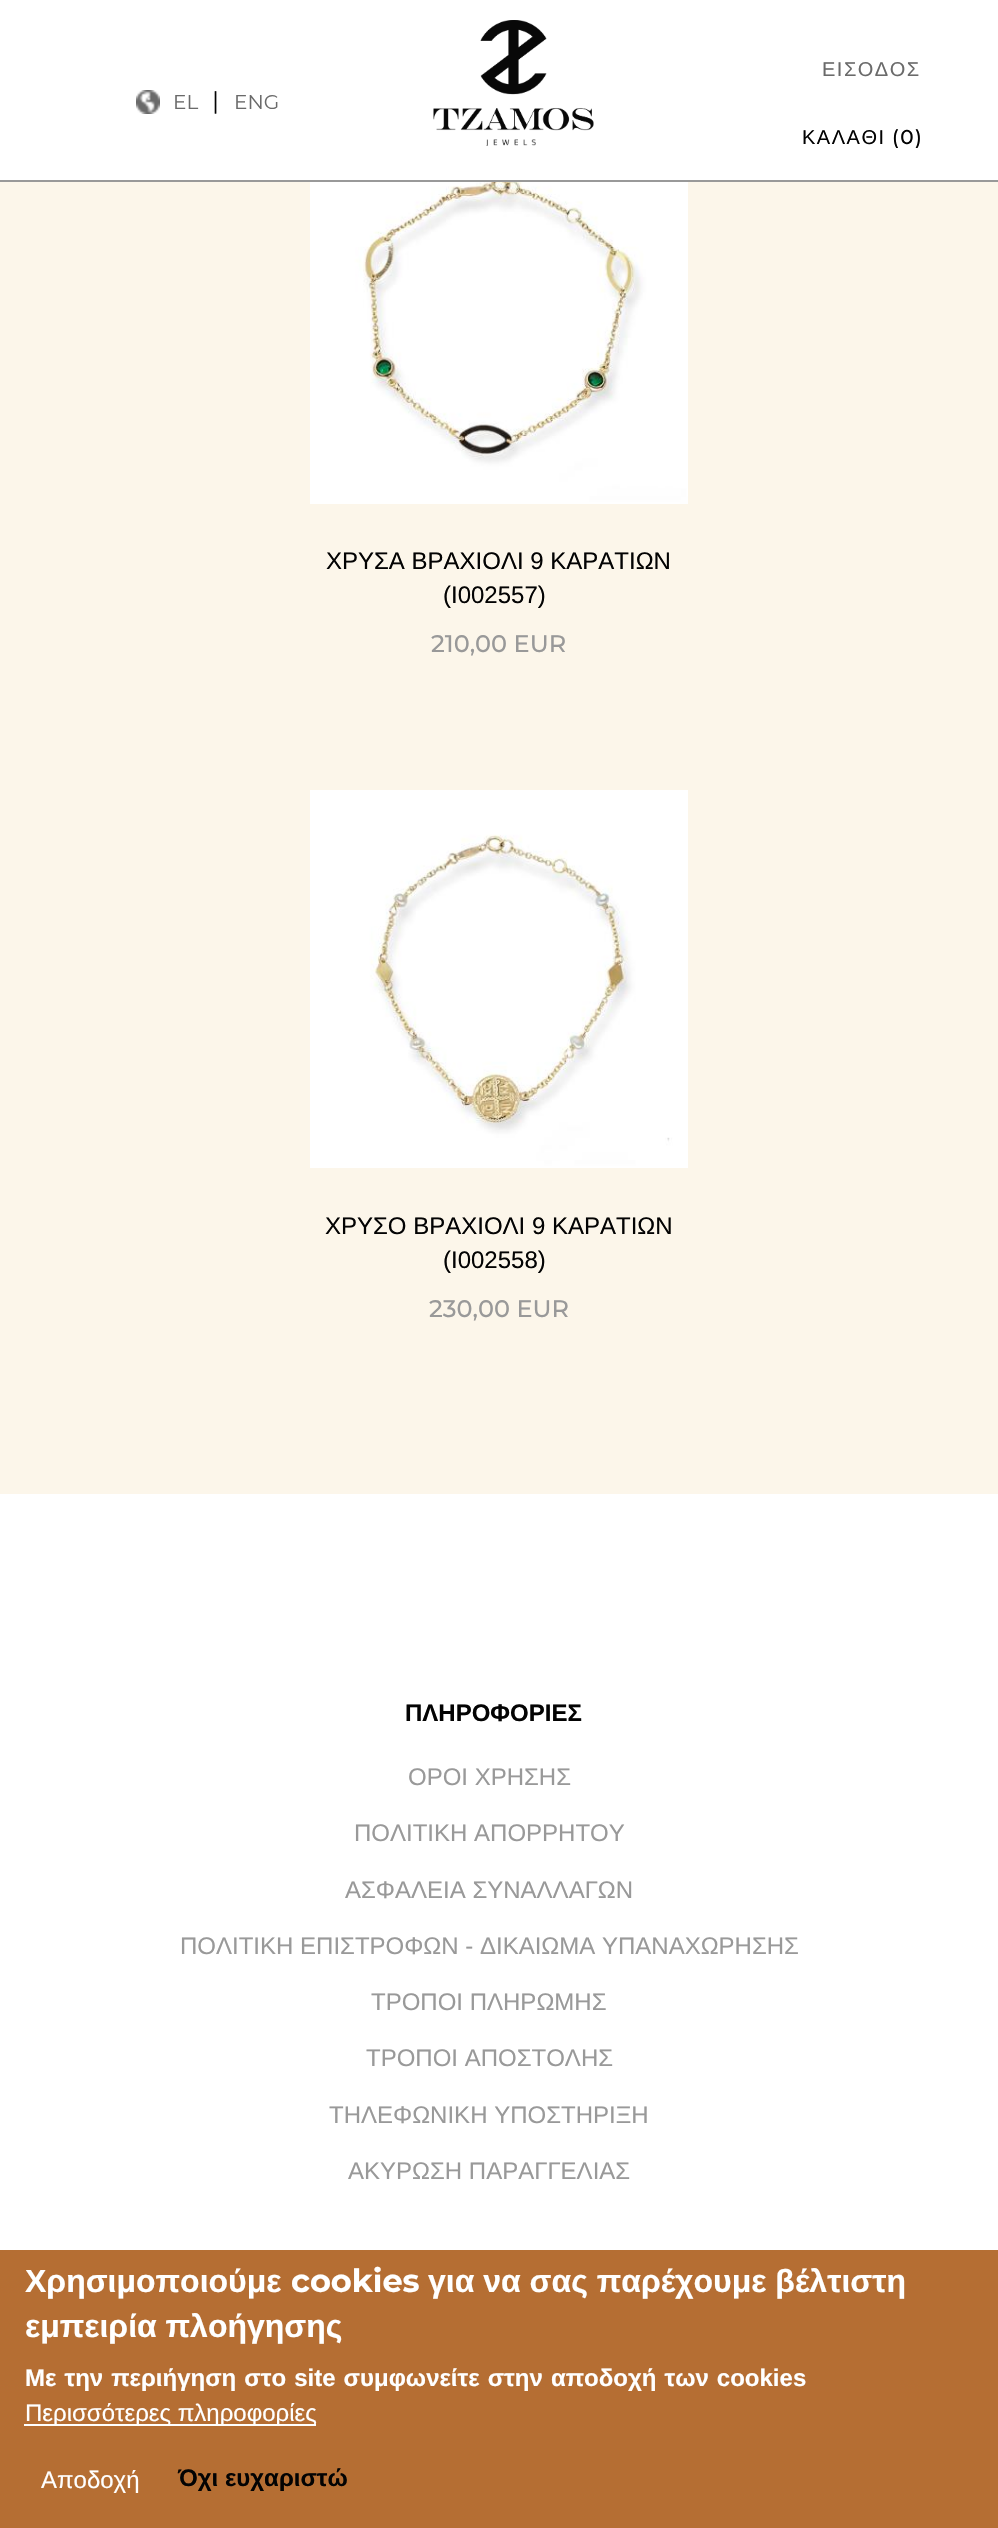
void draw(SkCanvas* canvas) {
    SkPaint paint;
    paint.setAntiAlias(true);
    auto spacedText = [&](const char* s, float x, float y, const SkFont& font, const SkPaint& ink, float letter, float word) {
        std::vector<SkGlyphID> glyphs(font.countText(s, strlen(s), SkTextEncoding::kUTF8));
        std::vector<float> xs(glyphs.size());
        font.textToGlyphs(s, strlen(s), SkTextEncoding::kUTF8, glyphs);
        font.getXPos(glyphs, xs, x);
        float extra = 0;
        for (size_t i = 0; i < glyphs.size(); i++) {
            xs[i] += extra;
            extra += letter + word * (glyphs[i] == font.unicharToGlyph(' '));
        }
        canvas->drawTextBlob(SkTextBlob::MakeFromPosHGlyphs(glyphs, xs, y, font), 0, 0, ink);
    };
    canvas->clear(0xFFFFFFFF);
    paint.setColor(0xFF999999);
    canvas->drawRect(SkRect::MakeXYWH(0, 180, 998, 2), paint);
    canvas->drawImageRect(SkImages::DeferredFromEncodedData(SkData::MakeFromFileName("img1.png")), SkRect::MakeXYWH(136, 90, 24, 24), SkSamplingOptions());
    SkFont font1(fontMgr->matchFamilyStyle("Montserrat", SkFontStyle::Normal()), 20);
    font1.setSubpixel(true);
    paint.setColor(0xFF6A6A6A);
    canvas->drawString("EL", 173, 109, font1, paint);
    SkFont font2(fontMgr->matchFamilyStyle("Montserrat", SkFontStyle::Normal()), 24);
    font2.setSubpixel(true);
    paint.setColor(0xFF030303);
    canvas->drawString("|", 212, 109, font2, paint);
    paint.setColor(0xFF6A6A6A);
    canvas->drawString("ENG", 234, 109, font1, paint);
    canvas->drawImageRect(SkImages::DeferredFromEncodedData(SkData::MakeFromFileName("img2.png")), SkRect::MakeXYWH(433, 20, 161, 126), SkSamplingOptions());
    SkFont font3(fontMgr->matchFamilyStyle("Liberation Sans", SkFontStyle::Normal()), 20);
    font3.setSubpixel(true);
    spacedText("ΕΙΣΟΔΟΣ", 822, 76, font3, paint, 1.5f, 0);
    paint.setColor(0xFF030303);
    spacedText("ΚΑΛΑΘΙ", 802, 144, font3, paint, 1.5f, 0);
    SkFont font4(fontMgr->matchFamilyStyle("Montserrat", SkFontStyle(500, SkFontStyle::kNormal_Width, SkFontStyle::kUpright_Slant)), 20);
    font4.setSubpixel(true);
    spacedText("(0)", 892, 144, font4, paint, 1.5f, 0);
    paint.setColor(0xFFFCF6EA);
    canvas->drawRect(SkRect::MakeXYWH(0, 182, 998, 1312), paint);
    canvas->drawImageRect(SkImages::DeferredFromEncodedData(SkData::MakeFromFileName("img3.png")), SkRect::MakeXYWH(310, 182, 378, 322), SkSamplingOptions());
    SkFont font5(fontMgr->matchFamilyStyle("Liberation Sans", SkFontStyle::Normal()), 24);
    font5.setSubpixel(true);
    paint.setColor(0xFF030303);
    canvas->drawString("ΧΡΥΣΑ ΒΡΑΧΙΟΛΙ 9 ΚΑΡΑΤΙΩΝ", 326, 569, font5, paint);
    canvas->drawString("(I002557)", 443, 603, font5, paint);
    SkFont font6(fontMgr->matchFamilyStyle("Montserrat", SkFontStyle(500, SkFontStyle::kNormal_Width, SkFontStyle::kUpright_Slant)), 24);
    font6.setSubpixel(true);
    paint.setColor(0xFF999999);
    canvas->drawString("210,00 EUR", 431, 652, font6, paint);
    canvas->drawImageRect(SkImages::DeferredFromEncodedData(SkData::MakeFromFileName("img4.png")), SkRect::MakeXYWH(310, 790, 378, 378), SkSamplingOptions());
    paint.setColor(0xFF030303);
    canvas->drawString("ΧΡΥΣΟ ΒΡΑΧΙΟΛΙ 9 ΚΑΡΑΤΙΩΝ", 325, 1234, font5, paint);
    canvas->drawString("(I002558)", 443, 1268, font5, paint);
    paint.setColor(0xFF999999);
    canvas->drawString("230,00 EUR", 429, 1317, font6, paint);
    SkFont font7(fontMgr->matchFamilyStyle("Liberation Sans", SkFontStyle::Bold()), 24);
    font7.setSubpixel(true);
    paint.setColor(0xFF030303);
    canvas->drawString("ΠΛΗΡΟΦΟΡΙΕΣ", 405, 1721, font7, paint);
    paint.setColor(0xFF999999);
    canvas->drawString("ΟΡΟΙ ΧΡΗΣΗΣ", 408, 1785, font5, paint);
    canvas->drawString("ΠΟΛΙΤΙΚΗ ΑΠΟΡΡΗΤΟΥ", 354, 1841, font5, paint);
    canvas->drawString("ΑΣΦΑΛΕΙΑ ΣΥΝΑΛΛΑΓΩΝ", 345, 1898, font5, paint);
    canvas->drawString("ΠΟΛΙΤΙΚΗ ΕΠΙΣΤΡΟΦΩΝ - ΔΙΚΑΙΩΜΑ ΥΠΑΝΑΧΩΡΗΣΗΣ", 180, 1954, font5, paint);
    canvas->drawString("ΤΡΟΠΟΙ ΠΛΗΡΩΜΗΣ", 371, 2010, font5, paint);
    canvas->drawString("ΤΡΟΠΟΙ ΑΠΟΣΤΟΛΗΣ", 366, 2066, font5, paint);
    canvas->drawString("ΤΗΛΕΦΩΝΙΚΗ ΥΠΟΣΤΗΡΙΞΗ", 329, 2123, font5, paint);
    canvas->drawString("ΑΚΥΡΩΣΗ ΠΑΡΑΓΓΕΛΙΑΣ", 348, 2179, font5, paint);
    paint.setColor(0xFFB56E33);
    canvas->drawRect(SkRect::MakeXYWH(0, 2250, 998, 278), paint);
    SkFont font8(fontMgr->matchFamilyStyle("Liberation Sans", SkFontStyle::Bold()), 32);
    font8.setSubpixel(true);
    paint.setColor(0xFFFFFFFF);
    canvas->drawString("Χρησιμοποιούμε", 25, 2292, font8, paint);
    SkFont font9(fontMgr->matchFamilyStyle("Montserrat", SkFontStyle::Bold()), 32);
    font9.setSubpixel(true);
    canvas->drawString("cookies", 291, 2292, font9, paint);
    canvas->drawString("για να σας παρέχουμε βέλτιστη", 428, 2292, font8, paint);
    canvas->drawString("εμπειρία πλοήγησης", 25, 2337, font8, paint);
    spacedText("Με την περιήγηση στο site συμφωνείτε στην αποδοχή των cookies", 25, 2386, font7, paint, 0, 1.4f);
    canvas->drawRect(SkRect::MakeXYWH(24, 2424, 292, 2), paint);
    canvas->drawString("Περισσότερες πληροφορίες", 25, 2421, font5, paint);
    canvas->drawString("Αποδοχή", 41, 2488, font5, paint);
    paint.setColor(0xFF030303);
    canvas->drawString("Όχι ευχαριστώ", 178, 2486, font7, paint);
}
